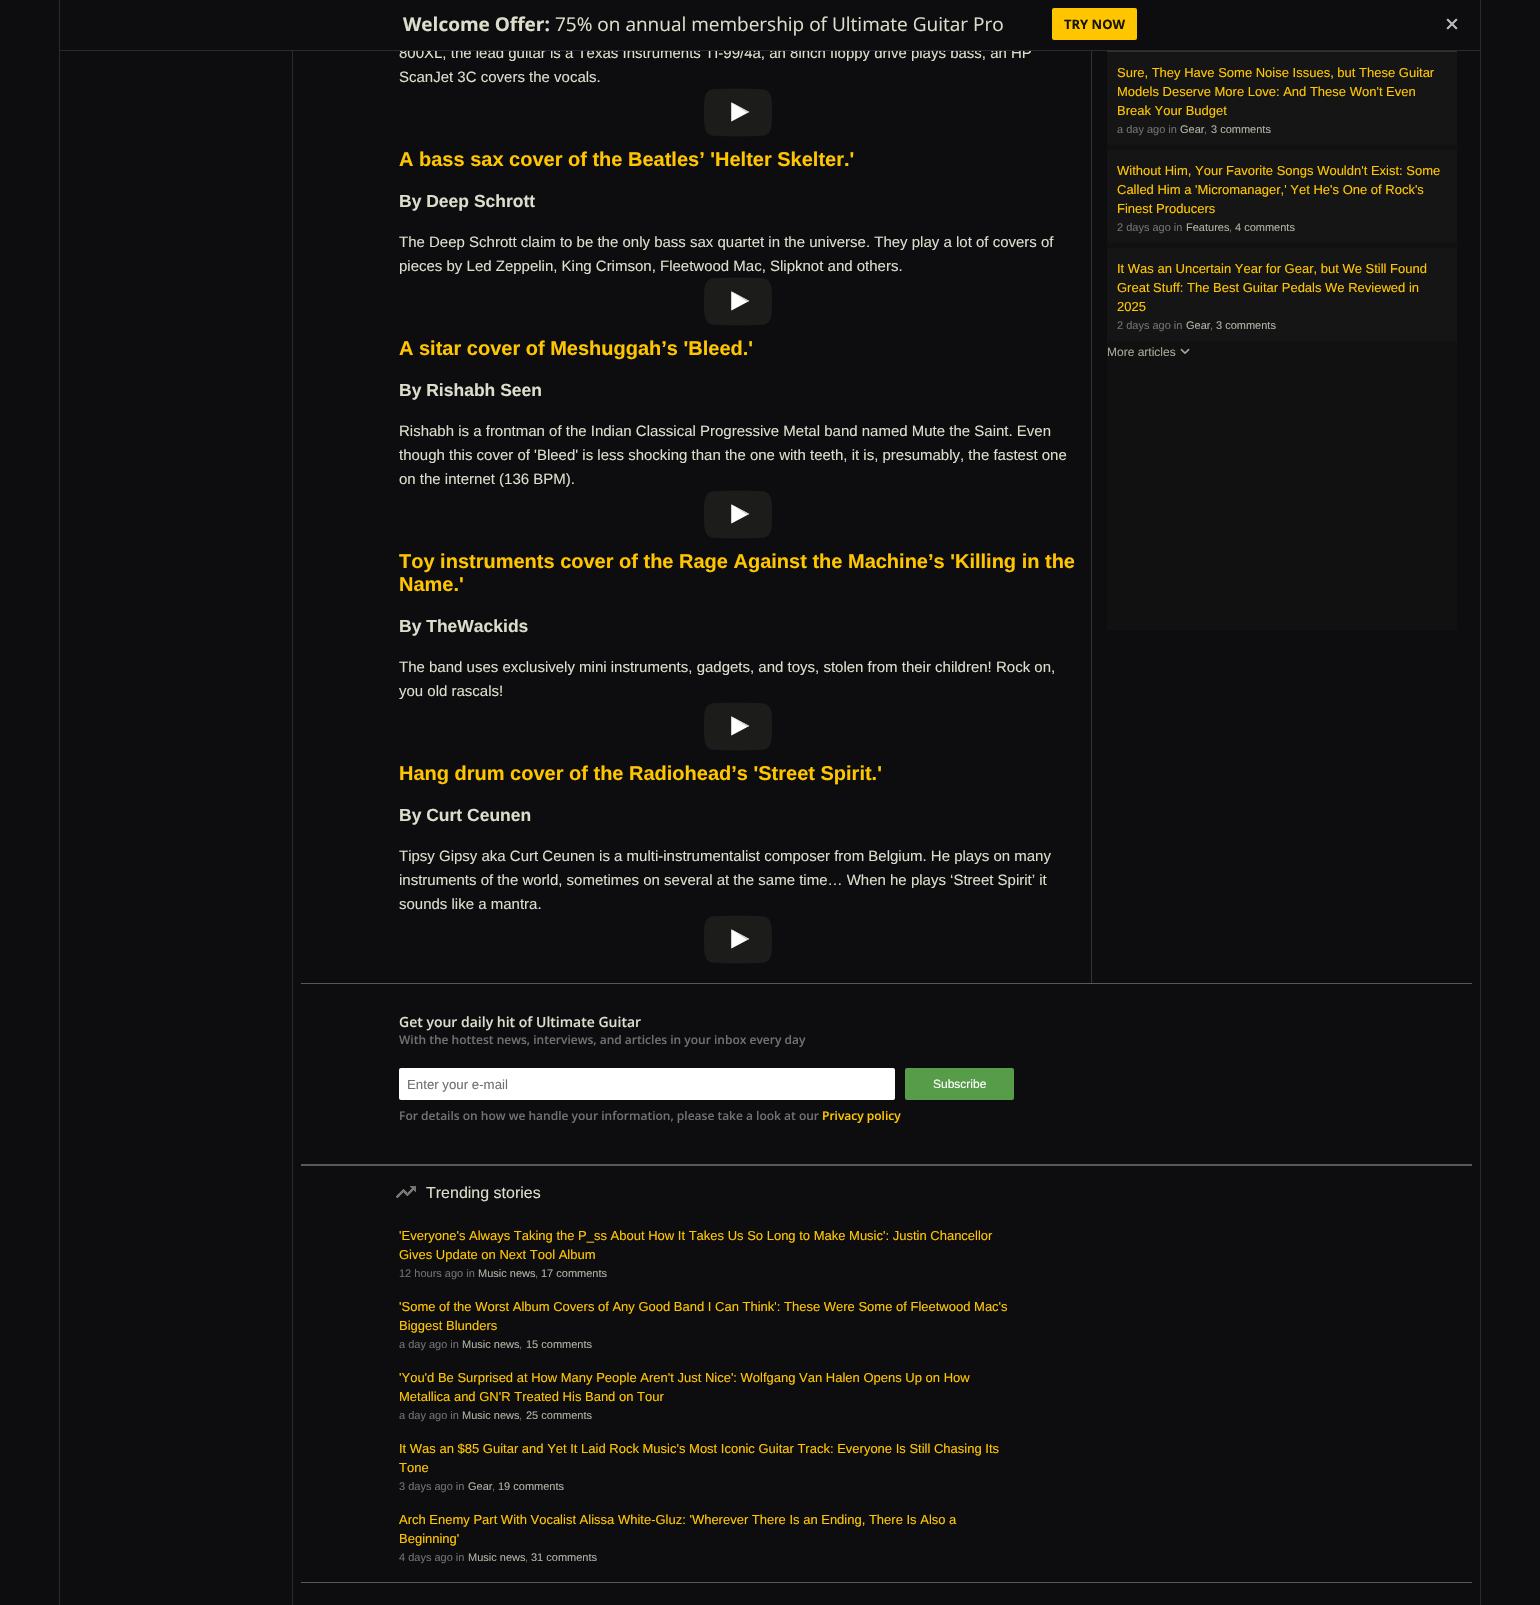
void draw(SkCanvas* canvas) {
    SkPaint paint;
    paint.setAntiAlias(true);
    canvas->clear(0xFF0D0D10);
    paint.setColor(0xFF2A2A2D);
    canvas->drawRect(SkRect::MakeXYWH(59, 0, 1, 1605), paint);
    SkFont font1(fontMgr->matchFamilyStyle("Liberation Sans", SkFontStyle::Normal()), 15);
    font1.setSubpixel(true);
    paint.setColor(0xFFDDDDCC);
    canvas->drawString("800XL, the lead guitar is a Texas Instruments TI-99/4a, an 8inch floppy drive plays bass, an HP", 399, 58, font1, paint);
    paint.setColor(0xFF0D0D10);
    canvas->drawRect(SkRect::MakeXYWH(400, 47, 631, 3), paint);
    paint.setColor(0xFF2A2A2D);
    canvas->drawRect(SkRect::MakeXYWH(60, 50, 1420, 1), paint);
    SkFont font2(fontMgr->matchFamilyStyle("Open Sans", SkFontStyle::Bold()), 19);
    font2.setSubpixel(true);
    paint.setColor(0xFFDDDDCC);
    canvas->drawString("Welcome Offer:", 403, 31, font2, paint);
    SkFont font3(fontMgr->matchFamilyStyle("Open Sans", SkFontStyle::Normal()), 19);
    font3.setSubpixel(true);
    canvas->drawString("75% on annual membership of Ultimate Guitar Pro", 555, 31, font3, paint);
    paint.setColor(0xFFFFC600);
    canvas->drawRoundRect(SkRect::MakeXYWH(1052, 8, 85, 32), 2, 2, paint);
    SkFont font4(fontMgr->matchFamilyStyle("Open Sans", SkFontStyle::Bold()), 13);
    font4.setSubpixel(true);
    paint.setColor(0xFF1A1400);
    canvas->drawString("TRY NOW", 1064, 29, font4, paint);
    canvas->drawImageRect(SkImages::DeferredFromEncodedData(SkData::MakeFromFileName("img1.png")), SkRect::MakeXYWH(1446, 18, 12, 12), SkSamplingOptions());
    paint.setColor(0xFF2A2A2D);
    canvas->drawRect(SkRect::MakeXYWH(1480, 0, 1, 1605), paint);
    canvas->drawRect(SkRect::MakeXYWH(292, 51, 1, 1554), paint);
    paint.setColor(0xFFDDDDCC);
    canvas->drawString("ScanJet 3C covers the vocals.", 399, 82, font1, paint);
    canvas->drawImageRect(SkImages::DeferredFromEncodedData(SkData::MakeFromFileName("img2.png")), SkRect::MakeXYWH(704, 88, 68, 49), SkSamplingOptions());
    SkFont font5(fontMgr->matchFamilyStyle("Liberation Sans", SkFontStyle::Bold()), 20);
    font5.setSubpixel(true);
    paint.setColor(0xFFFFC600);
    canvas->drawString("A bass sax cover of the Beatles’ 'Helter Skelter.'", 399, 166, font5, paint);
    SkFont font6(fontMgr->matchFamilyStyle("Liberation Sans", SkFontStyle::Bold()), 17.5f);
    font6.setSubpixel(true);
    paint.setColor(0xFFDDDDCC);
    canvas->drawString("By Deep Schrott", 399, 207, font6, paint);
    canvas->drawString("The Deep Schrott claim to be the only bass sax quartet in the universe. They play a lot of covers of", 399, 247, font1, paint);
    canvas->drawString("pieces by Led Zeppelin, King Crimson, Fleetwood Mac, Slipknot and others.", 399, 271, font1, paint);
    canvas->drawImageRect(SkImages::DeferredFromEncodedData(SkData::MakeFromFileName("img2.png")), SkRect::MakeXYWH(704, 277, 68, 49), SkSamplingOptions());
    paint.setColor(0xFFFFC600);
    canvas->drawString("A sitar cover of Meshuggah’s 'Bleed.'", 399, 355, font5, paint);
    paint.setColor(0xFFDDDDCC);
    canvas->drawString("By Rishabh Seen", 399, 396, font6, paint);
    canvas->drawString("Rishabh is a frontman of the Indian Classical Progressive Metal band named Mute the Saint. Even", 399, 436, font1, paint);
    canvas->drawString("though this cover of 'Bleed' is less shocking than the one with teeth, it is, presumably, the fastest one", 399, 460, font1, paint);
    canvas->drawString("on the internet (136 BPM).", 399, 484, font1, paint);
    canvas->drawImageRect(SkImages::DeferredFromEncodedData(SkData::MakeFromFileName("img2.png")), SkRect::MakeXYWH(704, 490, 68, 49), SkSamplingOptions());
    paint.setColor(0xFFFFC600);
    canvas->drawString("Toy instruments cover of the Rage Against the Machine’s 'Killing in the", 399, 568, font5, paint);
    canvas->drawString("Name.'", 399, 591, font5, paint);
    paint.setColor(0xFFDDDDCC);
    canvas->drawString("By TheWackids", 399, 632, font6, paint);
    canvas->drawString("The band uses exclusively mini instruments, gadgets, and toys, stolen from their children! Rock on,", 399, 672, font1, paint);
    canvas->drawString("you old rascals!", 399, 696, font1, paint);
    canvas->drawImageRect(SkImages::DeferredFromEncodedData(SkData::MakeFromFileName("img2.png")), SkRect::MakeXYWH(704, 702, 68, 49), SkSamplingOptions());
    paint.setColor(0xFFFFC600);
    canvas->drawString("Hang drum cover of the Radiohead’s 'Street Spirit.'", 399, 780, font5, paint);
    paint.setColor(0xFFDDDDCC);
    canvas->drawString("By Curt Ceunen", 399, 821, font6, paint);
    canvas->drawString("Tipsy Gipsy aka Curt Ceunen is a multi-instrumentalist composer from Belgium. He plays on many", 399, 861, font1, paint);
    canvas->drawString("instruments of the world, sometimes on several at the same time… When he plays ‘Street Spirit’ it", 399, 885, font1, paint);
    canvas->drawString("sounds like a mantra.", 399, 909, font1, paint);
    canvas->drawImageRect(SkImages::DeferredFromEncodedData(SkData::MakeFromFileName("img2.png")), SkRect::MakeXYWH(704, 915, 68, 49), SkSamplingOptions());
    paint.setColor(0xFF333333);
    canvas->drawRect(SkRect::MakeXYWH(1091, 51, 1, 932), paint);
    paint.setColor(0xFF111111);
    canvas->drawRect(SkRect::MakeXYWH(1107, 341, 350, 289), paint);
    paint.setColor(0xFF333333);
    canvas->drawRect(SkRect::MakeXYWH(1107, 51, 350, 1), paint);
    paint.setColor(0xFF151515);
    canvas->drawRect(SkRect::MakeXYWH(1107, 52, 350, 93), paint);
    SkFont font7(fontMgr->matchFamilyStyle("Liberation Sans", SkFontStyle::Normal()), 13);
    font7.setSubpixel(true);
    paint.setColor(0xFFFFC600);
    canvas->drawString("Sure, They Have Some Noise Issues, but These Guitar", 1117, 77, font7, paint);
    canvas->drawString("Models Deserve More Love: And These Won't Even", 1117, 96, font7, paint);
    canvas->drawString("Break Your Budget", 1117, 115, font7, paint);
    SkFont font8(fontMgr->matchFamilyStyle("Liberation Sans", SkFontStyle::Normal()), 11);
    font8.setSubpixel(true);
    paint.setColor(0xFF707070);
    canvas->drawString("a day ago in", 1117, 133, font8, paint);
    paint.setColor(0xFFB0B0A3);
    canvas->drawString("Gear", 1180, 133, font8, paint);
    paint.setColor(0xFF707070);
    canvas->drawString(",", 1204, 133, font8, paint);
    paint.setColor(0xFFB0B0A3);
    canvas->drawString("3 comments", 1211, 133, font8, paint);
    paint.setColor(0xFF151515);
    canvas->drawRect(SkRect::MakeXYWH(1107, 150, 350, 93), paint);
    paint.setColor(0xFF111111);
    canvas->drawRect(SkRect::MakeXYWH(1107, 145, 350, 5), paint);
    paint.setColor(0xFFFFC600);
    canvas->drawString("Without Him, Your Favorite Songs Wouldn't Exist: Some", 1117, 175, font7, paint);
    canvas->drawString("Called Him a 'Micromanager,' Yet He's One of Rock's", 1117, 194, font7, paint);
    canvas->drawString("Finest Producers", 1117, 213, font7, paint);
    paint.setColor(0xFF707070);
    canvas->drawString("2 days ago in", 1117, 231, font8, paint);
    paint.setColor(0xFFB0B0A3);
    canvas->drawString("Features", 1186, 231, font8, paint);
    paint.setColor(0xFF707070);
    canvas->drawString(",", 1229, 231, font8, paint);
    paint.setColor(0xFFB0B0A3);
    canvas->drawString("4 comments", 1235, 231, font8, paint);
    paint.setColor(0xFF151515);
    canvas->drawRect(SkRect::MakeXYWH(1107, 248, 350, 93), paint);
    paint.setColor(0xFF111111);
    canvas->drawRect(SkRect::MakeXYWH(1107, 243, 350, 5), paint);
    paint.setColor(0xFFFFC600);
    canvas->drawString("It Was an Uncertain Year for Gear, but We Still Found", 1117, 273, font7, paint);
    canvas->drawString("Great Stuff: The Best Guitar Pedals We Reviewed in", 1117, 292, font7, paint);
    canvas->drawString("2025", 1117, 311, font7, paint);
    paint.setColor(0xFF707070);
    canvas->drawString("2 days ago in", 1117, 329, font8, paint);
    paint.setColor(0xFFB0B0A3);
    canvas->drawString("Gear", 1186, 329, font8, paint);
    paint.setColor(0xFF707070);
    canvas->drawString(",", 1210, 329, font8, paint);
    paint.setColor(0xFFB0B0A3);
    canvas->drawString("3 comments", 1216, 329, font8, paint);
    SkFont font9(fontMgr->matchFamilyStyle("Liberation Sans", SkFontStyle::Normal()), 12);
    font9.setSubpixel(true);
    paint.setColor(0xFFA7A796);
    canvas->drawString("More articles", 1107, 356, font9, paint);
    canvas->drawImageRect(SkImages::DeferredFromEncodedData(SkData::MakeFromFileName("img3.png")), SkRect::MakeXYWH(1180, 348, 10, 6), SkSamplingOptions());
    paint.setColor(0xFF585858);
    canvas->drawRect(SkRect::MakeXYWH(301, 983, 1171, 1), paint);
    canvas->drawRect(SkRect::MakeXYWH(301, 1164, 1171, 2), paint);
    SkFont font10(fontMgr->matchFamilyStyle("Open Sans", SkFontStyle(600, SkFontStyle::kNormal_Width, SkFontStyle::kUpright_Slant)), 14);
    font10.setSubpixel(true);
    paint.setColor(0xFFDDDDCC);
    canvas->drawString("Get your daily hit of Ultimate Guitar", 399, 1027, font10, paint);
    SkFont font11(fontMgr->matchFamilyStyle("Open Sans", SkFontStyle(600, SkFontStyle::kNormal_Width, SkFontStyle::kUpright_Slant)), 12);
    font11.setSubpixel(true);
    paint.setColor(0xFF707070);
    canvas->drawString("With the hottest news, interviews, and articles in your inbox every day", 399, 1044, font11, paint);
    paint.setColor(0xFFFFFFFF);
    canvas->drawRoundRect(SkRect::MakeXYWH(399, 1068, 496, 32), 2, 2, paint);
    SkFont font12(fontMgr->matchFamilyStyle("Liberation Sans", SkFontStyle::Normal()), 13.25f);
    font12.setSubpixel(true);
    paint.setColor(0xFF707070);
    canvas->drawString("Enter your e-mail", 407, 1089, font12, paint);
    paint.setColor(0xFF579C48);
    canvas->drawRoundRect(SkRect::MakeXYWH(905, 1068, 109, 32), 2, 2, paint);
    paint.setColor(0xFFFFFFFF);
    canvas->drawString("Subscribe", 933, 1088, font9, paint);
    paint.setColor(0xFF707070);
    canvas->drawString("For details on how we handle your information, please take a look at our", 399, 1120, font11, paint);
    paint.setColor(0xFFFFC600);
    canvas->drawString("Privacy policy", 822, 1120, font11, paint);
    paint.setColor(0xFF585858);
    canvas->drawRect(SkRect::MakeXYWH(301, 1582, 1171, 1), paint);
    canvas->drawImageRect(SkImages::DeferredFromEncodedData(SkData::MakeFromFileName("img4.png")), SkRect::MakeXYWH(396, 1186, 20, 12), SkSamplingOptions());
    SkFont font13(fontMgr->matchFamilyStyle("Liberation Sans", SkFontStyle::Normal()), 16);
    font13.setSubpixel(true);
    paint.setColor(0xFFDDDDCC);
    canvas->drawString("Trending stories", 426, 1198, font13, paint);
    paint.setColor(0xFFFFC600);
    canvas->drawString("'Everyone's Always Taking the P_ss About How It Takes Us So Long to Make Music': Justin Chancellor", 399, 1240, font7, paint);
    canvas->drawString("Gives Update on Next Tool Album", 399, 1259, font7, paint);
    paint.setColor(0xFF707070);
    canvas->drawString("12 hours ago in", 399, 1277, font8, paint);
    paint.setColor(0xFFB0B0A3);
    canvas->drawString("Music news", 478, 1277, font8, paint);
    paint.setColor(0xFF707070);
    canvas->drawString(",", 535, 1277, font8, paint);
    paint.setColor(0xFFB0B0A3);
    canvas->drawString("17 comments", 541, 1277, font8, paint);
    paint.setColor(0xFFFFC600);
    canvas->drawString("'Some of the Worst Album Covers of Any Good Band I Can Think': These Were Some of Fleetwood Mac's", 399, 1311, font7, paint);
    canvas->drawString("Biggest Blunders", 399, 1330, font7, paint);
    paint.setColor(0xFF707070);
    canvas->drawString("a day ago in", 399, 1348, font8, paint);
    paint.setColor(0xFFB0B0A3);
    canvas->drawString("Music news", 462, 1348, font8, paint);
    paint.setColor(0xFF707070);
    canvas->drawString(",", 519, 1348, font8, paint);
    paint.setColor(0xFFB0B0A3);
    canvas->drawString("15 comments", 526, 1348, font8, paint);
    paint.setColor(0xFFFFC600);
    canvas->drawString("'You'd Be Surprised at How Many People Aren't Just Nice': Wolfgang Van Halen Opens Up on How", 399, 1382, font7, paint);
    canvas->drawString("Metallica and GN'R Treated His Band on Tour", 399, 1401, font7, paint);
    paint.setColor(0xFF707070);
    canvas->drawString("a day ago in", 399, 1419, font8, paint);
    paint.setColor(0xFFB0B0A3);
    canvas->drawString("Music news", 462, 1419, font8, paint);
    paint.setColor(0xFF707070);
    canvas->drawString(",", 519, 1419, font8, paint);
    paint.setColor(0xFFB0B0A3);
    canvas->drawString("25 comments", 526, 1419, font8, paint);
    paint.setColor(0xFFFFC600);
    canvas->drawString("It Was an $85 Guitar and Yet It Laid Rock Music's Most Iconic Guitar Track: Everyone Is Still Chasing Its", 399, 1453, font7, paint);
    canvas->drawString("Tone", 399, 1472, font7, paint);
    paint.setColor(0xFF707070);
    canvas->drawString("3 days ago in", 399, 1490, font8, paint);
    paint.setColor(0xFFB0B0A3);
    canvas->drawString("Gear", 468, 1490, font8, paint);
    paint.setColor(0xFF707070);
    canvas->drawString(",", 492, 1490, font8, paint);
    paint.setColor(0xFFB0B0A3);
    canvas->drawString("19 comments", 498, 1490, font8, paint);
    paint.setColor(0xFFFFC600);
    canvas->drawString("Arch Enemy Part With Vocalist Alissa White-Gluz: 'Wherever There Is an Ending, There Is Also a", 399, 1524, font7, paint);
    canvas->drawString("Beginning'", 399, 1543, font7, paint);
    paint.setColor(0xFF707070);
    canvas->drawString("4 days ago in", 399, 1561, font8, paint);
    paint.setColor(0xFFB0B0A3);
    canvas->drawString("Music news", 468, 1561, font8, paint);
    paint.setColor(0xFF707070);
    canvas->drawString(",", 525, 1561, font8, paint);
    paint.setColor(0xFFB0B0A3);
    canvas->drawString("31 comments", 531, 1561, font8, paint);
}
